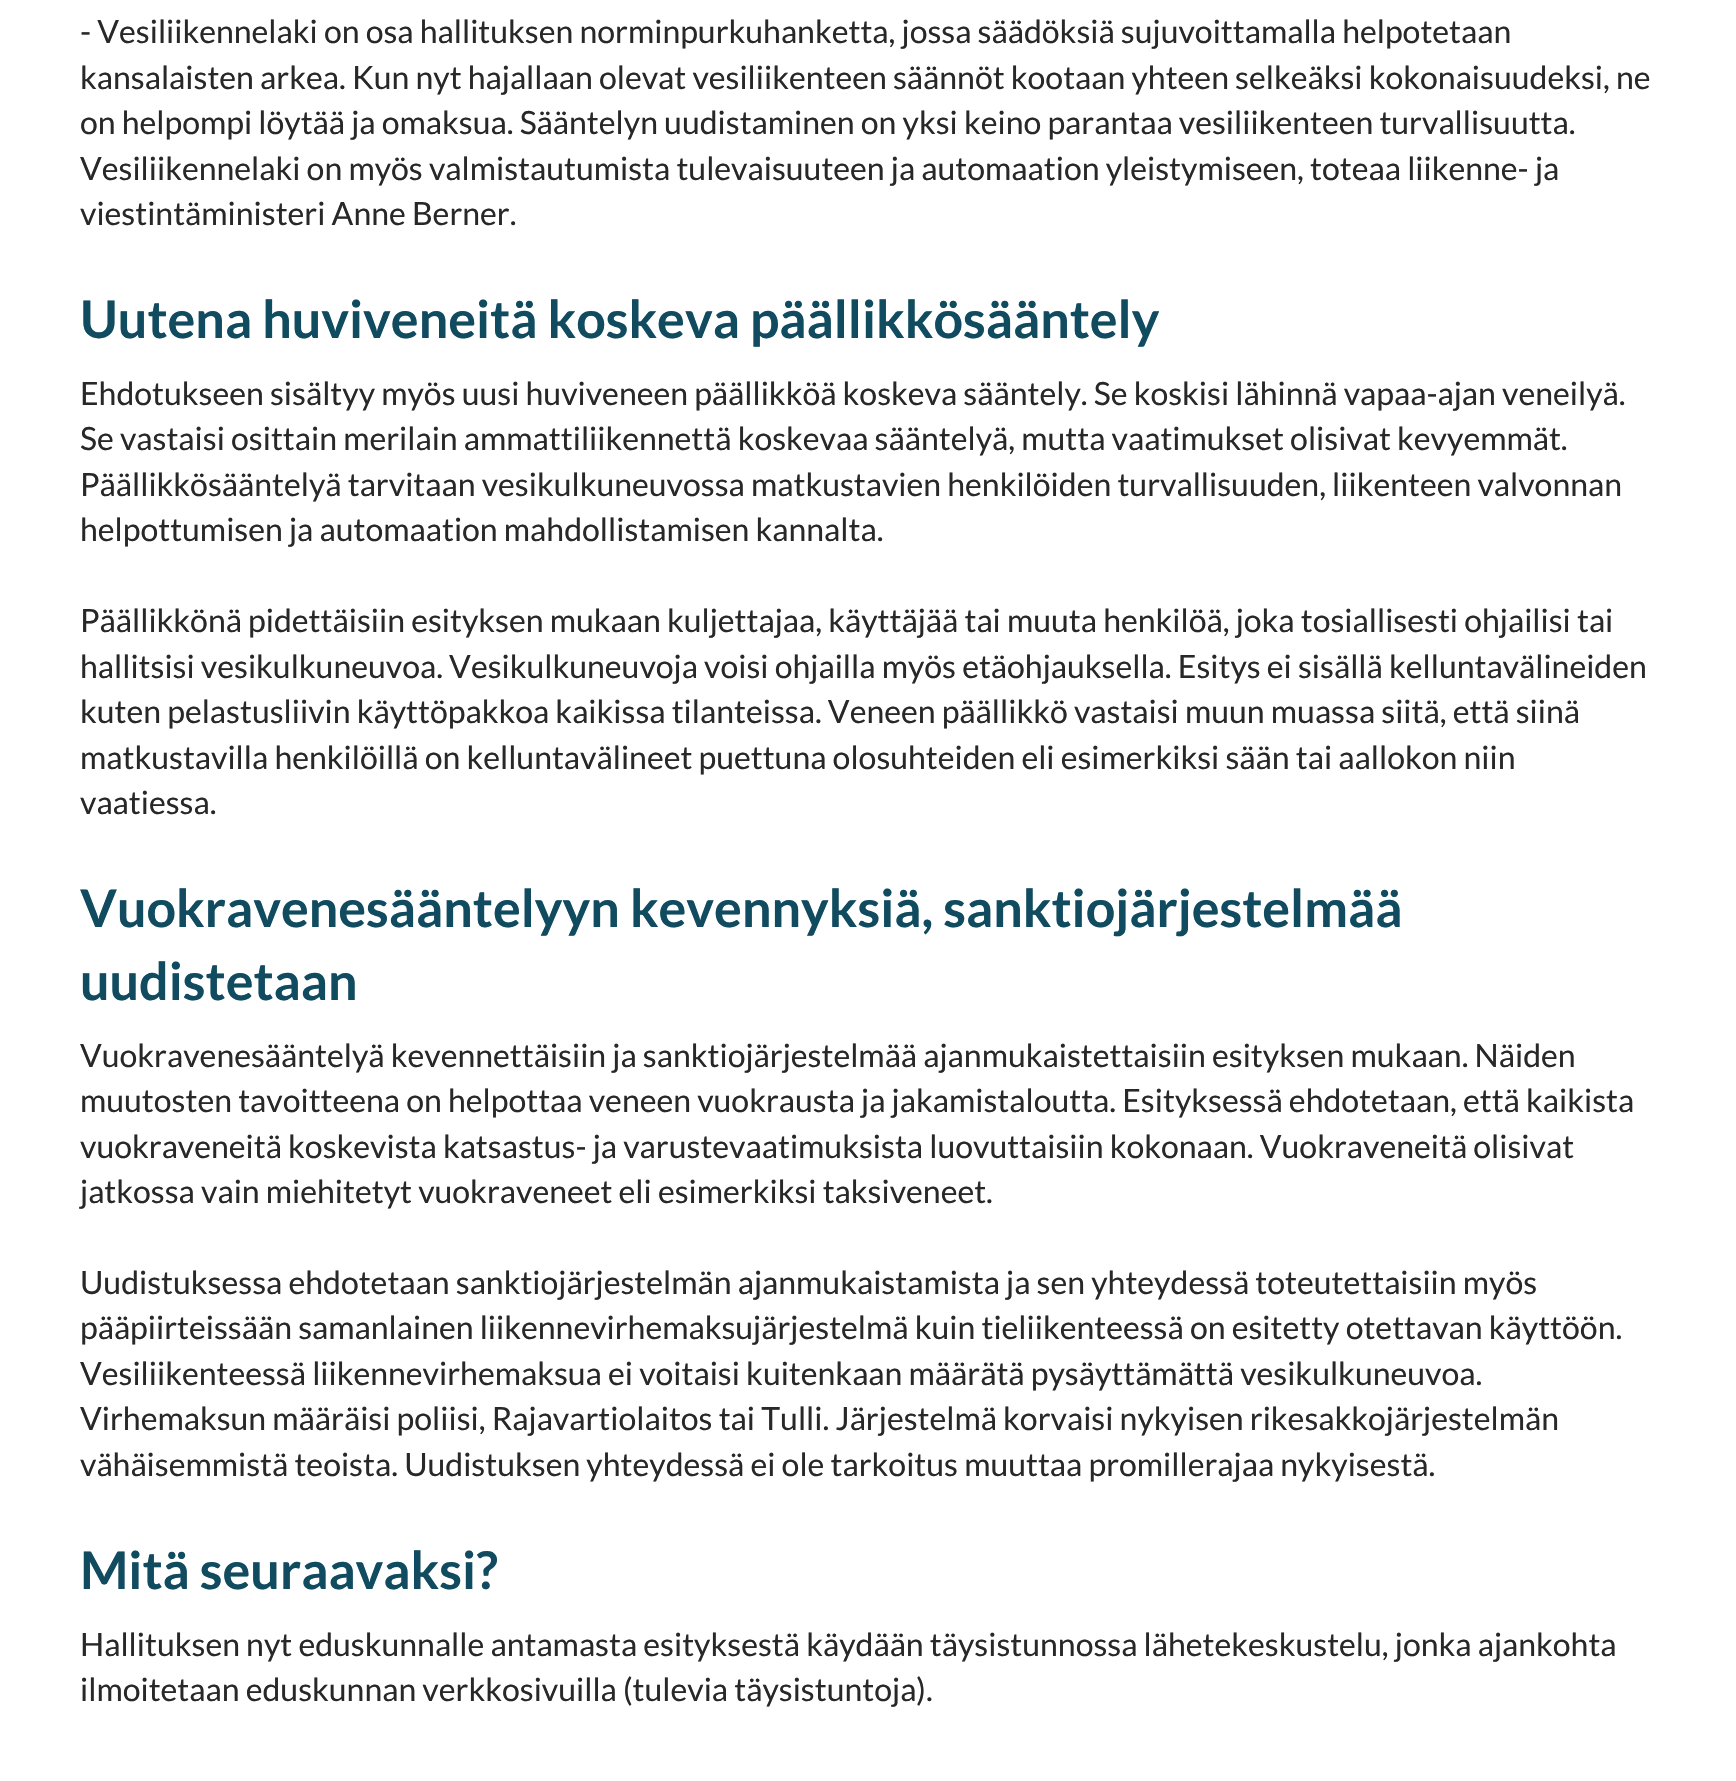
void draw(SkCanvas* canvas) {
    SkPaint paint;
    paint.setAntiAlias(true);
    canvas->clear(0xFFFFFFFF);
    SkFont font1(fontMgr->matchFamilyStyle("Lato", SkFontStyle::Normal()), 32);
    font1.setSubpixel(true);
    paint.setColor(0xFF282828);
    canvas->drawString("- Vesiliikennelaki on osa hallituksen norminpurkuhanketta, jossa säädöksiä sujuvoittamalla helpotetaan", 80, 43, font1, paint);
    canvas->drawString("kansalaisten arkea. Kun nyt hajallaan olevat vesiliikenteen säännöt kootaan yhteen selkeäksi kokonaisuudeksi, ne", 80, 89, font1, paint);
    canvas->drawString("on helpompi löytää ja omaksua. Sääntelyn uudistaminen on yksi keino parantaa vesiliikenteen turvallisuutta.", 80, 134, font1, paint);
    canvas->drawString("Vesiliikennelaki on myös valmistautumista tulevaisuuteen ja automaation yleistymiseen, toteaa liikenne- ja", 80, 180, font1, paint);
    canvas->drawString("viestintäministeri Anne Berner.", 80, 225, font1, paint);
    SkFont font2(fontMgr->matchFamilyStyle("Lato", SkFontStyle::Bold()), 52);
    font2.setSubpixel(true);
    paint.setColor(0xFF114B5F);
    canvas->drawString("Uutena huviveneitä koskeva päällikkösääntely", 80, 338, font2, paint);
    paint.setColor(0xFF282828);
    canvas->drawString("Ehdotukseen sisältyy myös uusi huviveneen päällikköä koskeva sääntely. Se koskisi lähinnä vapaa-ajan veneilyä.", 80, 405, font1, paint);
    canvas->drawString("Se vastaisi osittain merilain ammattiliikennettä koskevaa sääntelyä, mutta vaatimukset olisivat kevyemmät.", 80, 450, font1, paint);
    canvas->drawString("Päällikkösääntelyä tarvitaan vesikulkuneuvossa matkustavien henkilöiden turvallisuuden, liikenteen valvonnan", 80, 496, font1, paint);
    canvas->drawString("helpottumisen ja automaation mahdollistamisen kannalta.", 80, 541, font1, paint);
    canvas->drawString("Päällikkönä pidettäisiin esityksen mukaan kuljettajaa, käyttäjää tai muuta henkilöä, joka tosiallisesti ohjailisi tai", 80, 632, font1, paint);
    canvas->drawString("hallitsisi vesikulkuneuvoa. Vesikulkuneuvoja voisi ohjailla myös etäohjauksella. Esitys ei sisällä kelluntavälineiden", 80, 678, font1, paint);
    canvas->drawString("kuten pelastusliivin käyttöpakkoa kaikissa tilanteissa. Veneen päällikkö vastaisi muun muassa siitä, että siinä", 80, 723, font1, paint);
    canvas->drawString("matkustavilla henkilöillä on kelluntavälineet puettuna olosuhteiden eli esimerkiksi sään tai aallokon niin", 80, 769, font1, paint);
    canvas->drawString("vaatiessa.", 80, 814, font1, paint);
    paint.setColor(0xFF114B5F);
    canvas->drawString("Vuokravenesääntelyyn kevennyksiä, sanktiojärjestelmää", 80, 927, font2, paint);
    canvas->drawString("uudistetaan", 80, 1000, font2, paint);
    paint.setColor(0xFF282828);
    canvas->drawString("Vuokravenesääntelyä kevennettäisiin ja sanktiojärjestelmää ajanmukaistettaisiin esityksen mukaan. Näiden", 80, 1067, font1, paint);
    canvas->drawString("muutosten tavoitteena on helpottaa veneen vuokrausta ja jakamistaloutta. Esityksessä ehdotetaan, että kaikista", 80, 1112, font1, paint);
    canvas->drawString("vuokraveneitä koskevista katsastus- ja varustevaatimuksista luovuttaisiin kokonaan. Vuokraveneitä olisivat", 80, 1158, font1, paint);
    canvas->drawString("jatkossa vain miehitetyt vuokraveneet eli esimerkiksi taksiveneet.", 80, 1203, font1, paint);
    canvas->drawString("Uudistuksessa ehdotetaan sanktiojärjestelmän ajanmukaistamista ja sen yhteydessä toteutettaisiin myös", 80, 1294, font1, paint);
    canvas->drawString("pääpiirteissään samanlainen liikennevirhemaksujärjestelmä kuin tieliikenteessä on esitetty otettavan käyttöön.", 80, 1339, font1, paint);
    canvas->drawString("Vesiliikenteessä liikennevirhemaksua ei voitaisi kuitenkaan määrätä pysäyttämättä vesikulkuneuvoa.", 80, 1385, font1, paint);
    canvas->drawString("Virhemaksun määräisi poliisi, Rajavartiolaitos tai Tulli. Järjestelmä korvaisi nykyisen rikesakkojärjestelmän", 80, 1430, font1, paint);
    canvas->drawString("vähäisemmistä teoista. Uudistuksen yhteydessä ei ole tarkoitus muuttaa promillerajaa nykyisestä.", 80, 1476, font1, paint);
    paint.setColor(0xFF114B5F);
    canvas->drawString("Mitä seuraavaksi?", 80, 1589, font2, paint);
    paint.setColor(0xFF282828);
    canvas->drawString("Hallituksen nyt eduskunnalle antamasta esityksestä käydään täysistunnossa lähetekeskustelu, jonka ajankohta", 80, 1656, font1, paint);
    canvas->drawString("ilmoitetaan eduskunnan verkkosivuilla (tulevia täysistuntoja).", 80, 1701, font1, paint);
}
